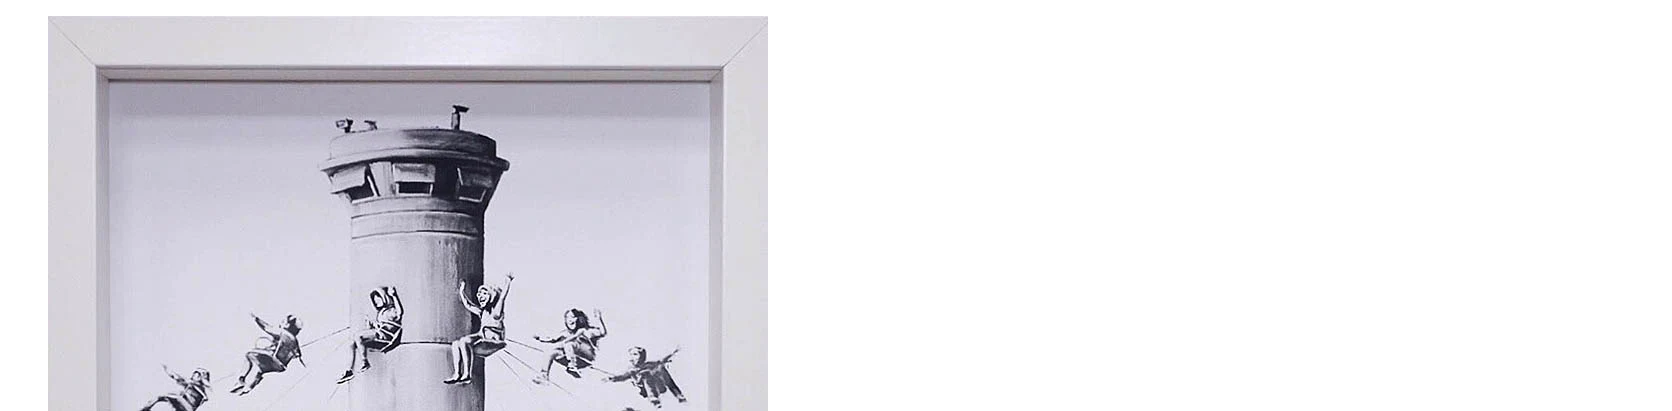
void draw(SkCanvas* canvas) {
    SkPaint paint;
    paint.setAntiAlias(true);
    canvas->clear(0xFFFFFFFF);
    canvas->drawImageRect(SkImages::DeferredFromEncodedData(SkData::MakeFromFileName("img1.png")), SkRect::MakeXYWH(48, 16, 720, 395), SkSamplingOptions());
}
